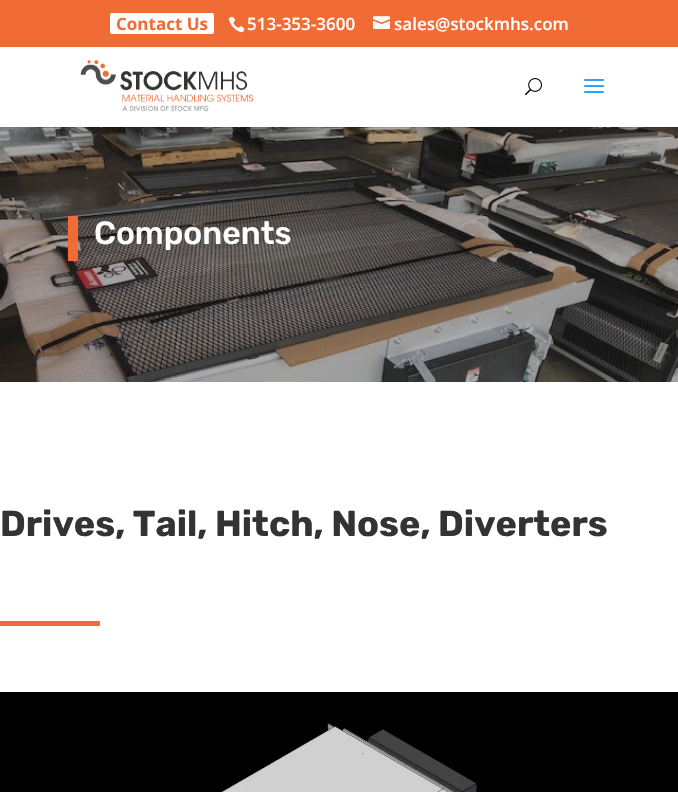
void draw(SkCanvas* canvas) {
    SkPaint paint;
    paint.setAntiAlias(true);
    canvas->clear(0xFFFFFFFF);
    paint.setColor(0xFFF16B34);
    canvas->drawRect(SkRect::MakeXYWH(0, 0, 678, 47), paint);
    paint.setColor(0xFFFFFFFF);
    canvas->drawRoundRect(SkRect::MakeXYWH(110, 13, 104, 21), 2, 2, paint);
    SkFont font1(fontMgr->matchFamilyStyle("Open Sans", SkFontStyle::Bold()), 17);
    font1.setSubpixel(true);
    paint.setColor(0xFFF16B34);
    canvas->drawString("Contact Us", 116, 30, font1, paint);
    canvas->drawImageRect(SkImages::DeferredFromEncodedData(SkData::MakeFromFileName("img1.png")), SkRect::MakeXYWH(228, 16, 17, 17), SkSamplingOptions());
    SkFont font2(fontMgr->matchFamilyStyle("Open Sans", SkFontStyle(600, SkFontStyle::kNormal_Width, SkFontStyle::kUpright_Slant)), 17);
    font2.setSubpixel(true);
    paint.setColor(0xFFFFFFFF);
    canvas->drawString("513-353-3600", 247, 30, font2, paint);
    canvas->drawImageRect(SkImages::DeferredFromEncodedData(SkData::MakeFromFileName("img2.png")), SkRect::MakeXYWH(373, 16, 17, 13), SkSamplingOptions());
    canvas->drawString("sales@stockmhs.com", 394, 30, font2, paint);
    canvas->drawImageRect(SkImages::DeferredFromEncodedData(SkData::MakeFromFileName("img6.png")), SkRect::MakeXYWH(0, 127, 678, 255), SkSamplingOptions());
    paint.setColor(0x1A000000);
    canvas->drawRect(SkRect::MakeXYWH(0, 127, 678, 1), paint);
    canvas->drawImageRect(SkImages::DeferredFromEncodedData(SkData::MakeFromFileName("img3.png")), SkRect::MakeXYWH(80, 60, 174, 52), SkSamplingOptions());
    canvas->drawImageRect(SkImages::DeferredFromEncodedData(SkData::MakeFromFileName("img4.png")), SkRect::MakeXYWH(525, 78, 17, 18), SkSamplingOptions());
    canvas->drawImageRect(SkImages::DeferredFromEncodedData(SkData::MakeFromFileName("img5.png")), SkRect::MakeXYWH(584, 79, 20, 14), SkSamplingOptions());
    paint.setColor(0xFFF16B34);
    canvas->drawRect(SkRect::MakeXYWH(68, 216, 10, 45), paint);
    SkFont font3(fontMgr->matchFamilyStyle("Rubik", SkFontStyle(300, SkFontStyle::kNormal_Width, SkFontStyle::kUpright_Slant)), 32);
    font3.setSubpixel(true);
    paint.setColor(0xFFFFFFFF);
    canvas->drawString("Components", 94, 244, font3, paint);
    SkFont font4(fontMgr->matchFamilyStyle("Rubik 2", SkFontStyle(300, SkFontStyle::kNormal_Width, SkFontStyle::kUpright_Slant)), 36);
    font4.setSubpixel(true);
    paint.setColor(0xFF333333);
    canvas->drawString("Drives, Tail, Hitch, Nose, Diverters", 0, 536, font4, paint);
    paint.setColor(0xFFF16B34);
    canvas->drawRect(SkRect::MakeXYWH(0, 621, 100, 5), paint);
    canvas->drawImageRect(SkImages::DeferredFromEncodedData(SkData::MakeFromFileName("img7.png")), SkRect::MakeXYWH(0, 692, 678, 100), SkSamplingOptions());
}
